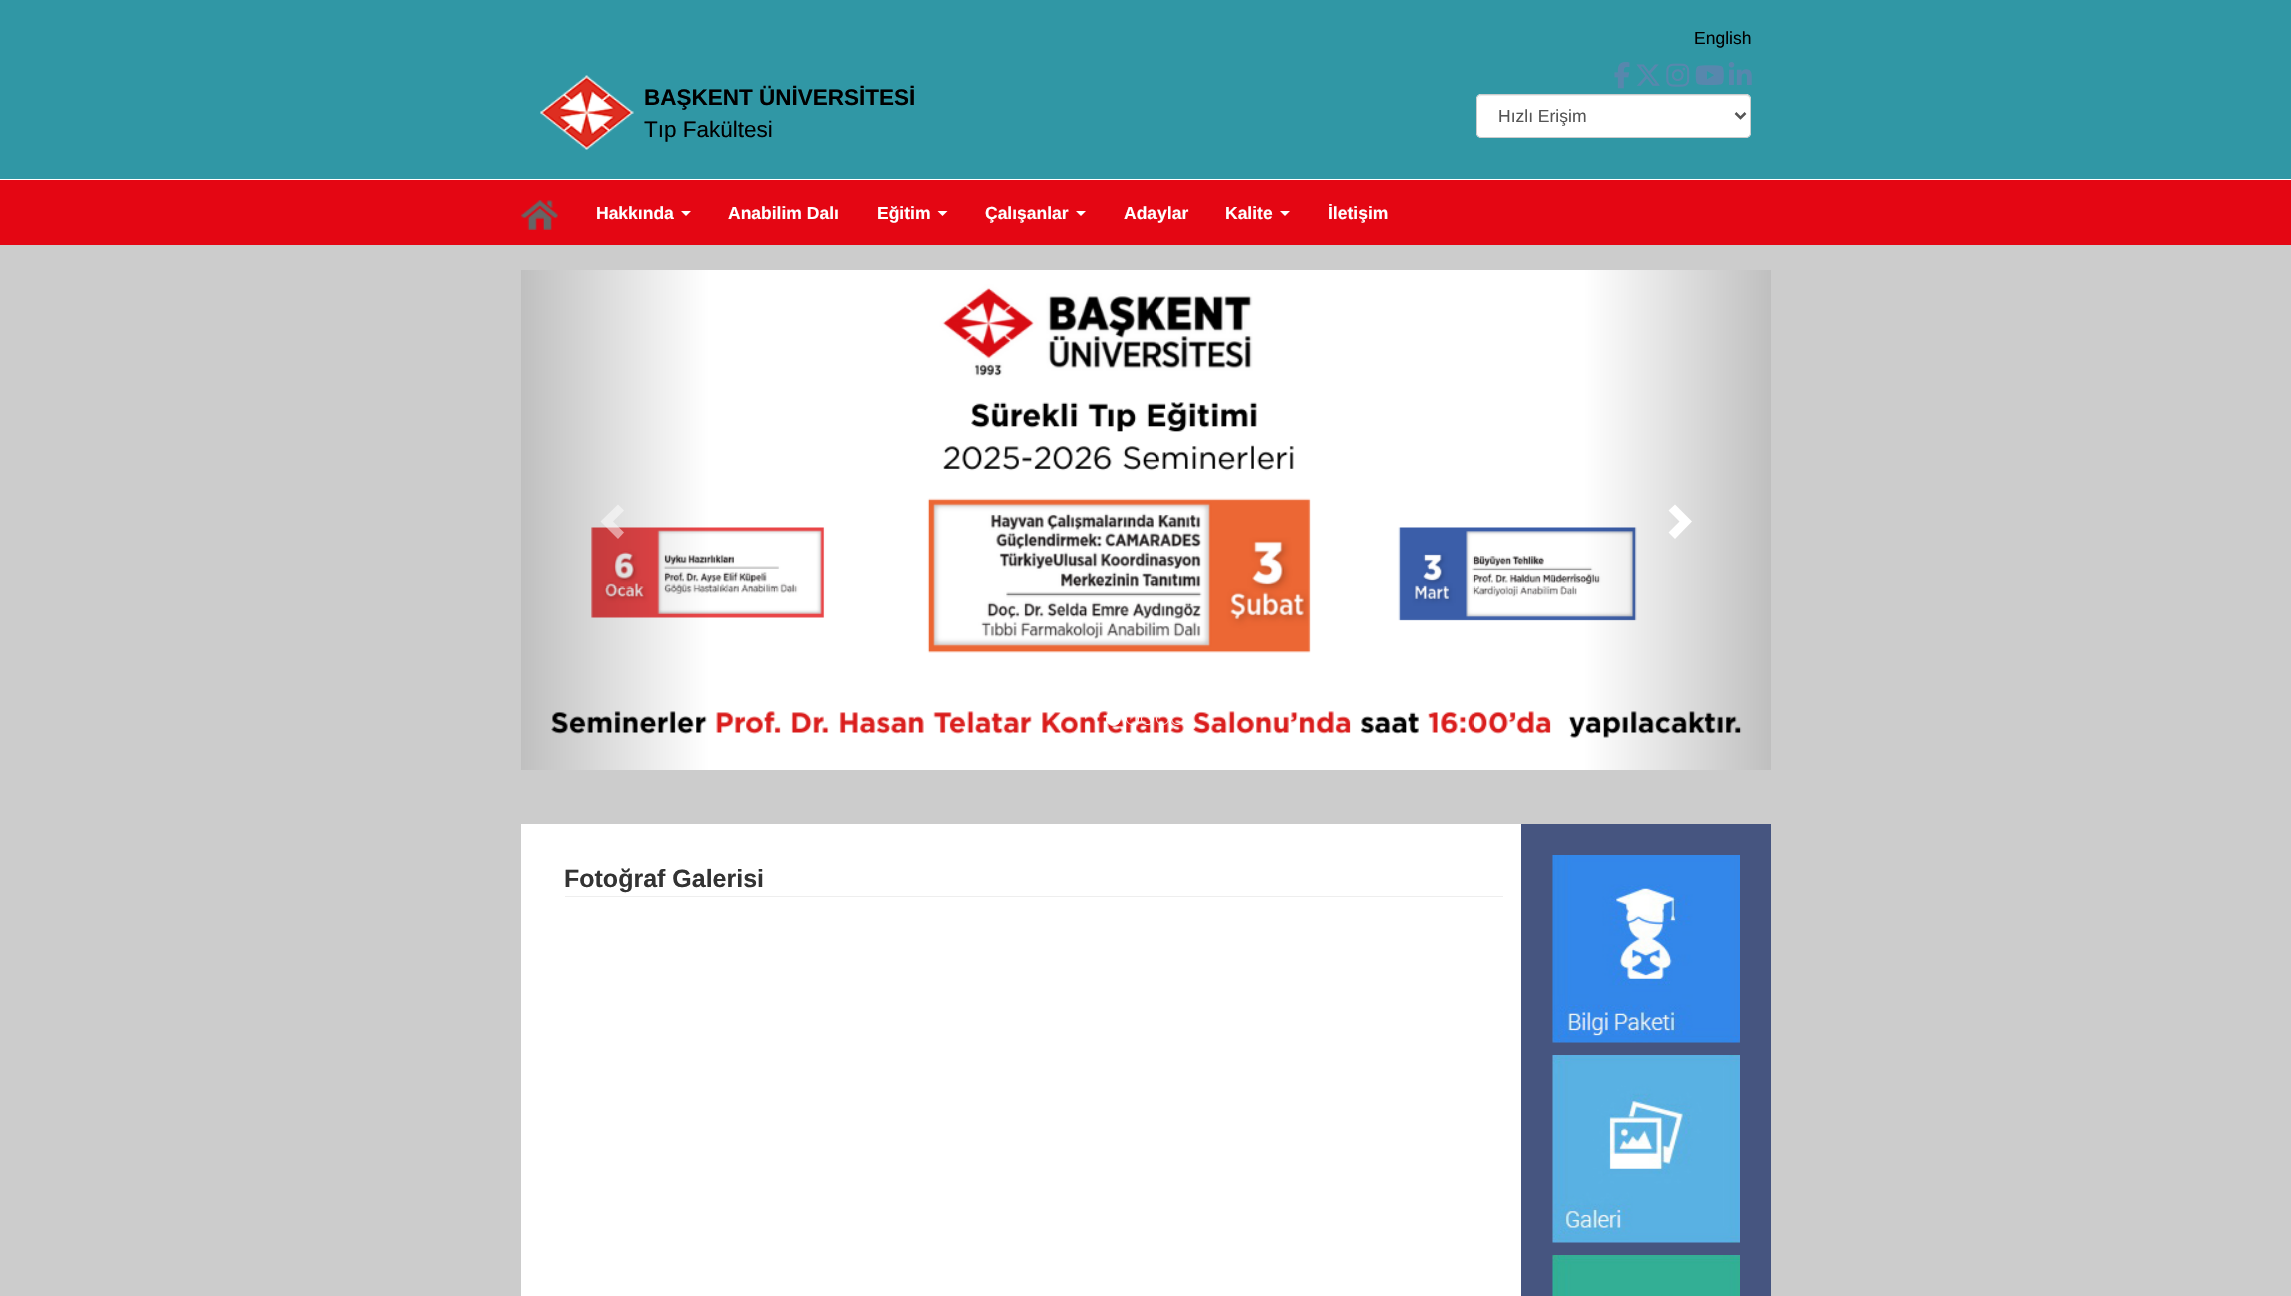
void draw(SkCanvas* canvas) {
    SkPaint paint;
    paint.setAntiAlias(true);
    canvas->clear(0xFFCCCCCC);
    paint.setColor(0xFF3097A5);
    canvas->drawRect(SkRect::MakeXYWH(0, 0, 2291, 179), paint);
    paint.setColor(0xFFFFFFFF);
    canvas->drawRect(SkRect::MakeXYWH(0, 179, 2291, 1), paint);
    SkFont font1(fontMgr->matchFamilyStyle("Liberation Sans", SkFontStyle::Normal()), 17.5f);
    font1.setSubpixel(true);
    paint.setColor(0xFF000000);
    canvas->drawString("English", 1694, 44, font1, paint);
    canvas->drawImageRect(SkImages::DeferredFromEncodedData(SkData::MakeFromFileName("img1.png")), SkRect::MakeXYWH(540, 75, 94, 75), SkSamplingOptions());
    SkFont font2(fontMgr->matchFamilyStyle("Liberation Sans", SkFontStyle::Bold()), 22.5f);
    font2.setSubpixel(true);
    canvas->drawString("BAŞKENT ÜNİVERSİTESİ", 644, 105, font2, paint);
    SkFont font3(fontMgr->matchFamilyStyle("Liberation Sans", SkFontStyle::Normal()), 22.5f);
    font3.setSubpixel(true);
    canvas->drawString("Tıp Fakültesi", 644, 137, font3, paint);
    canvas->drawImageRect(SkImages::DeferredFromEncodedData(SkData::MakeFromFileName("img2.png")), SkRect::MakeXYWH(1614, 62, 16, 27), SkSamplingOptions());
    canvas->drawImageRect(SkImages::DeferredFromEncodedData(SkData::MakeFromFileName("img3.png")), SkRect::MakeXYWH(1636, 64, 24, 22), SkSamplingOptions());
    canvas->drawImageRect(SkImages::DeferredFromEncodedData(SkData::MakeFromFileName("img4.png")), SkRect::MakeXYWH(1666, 63, 24, 24), SkSamplingOptions());
    canvas->drawImageRect(SkImages::DeferredFromEncodedData(SkData::MakeFromFileName("img5.png")), SkRect::MakeXYWH(1695, 65, 29, 20), SkSamplingOptions());
    canvas->drawImageRect(SkImages::DeferredFromEncodedData(SkData::MakeFromFileName("img6.png")), SkRect::MakeXYWH(1728, 62, 24, 23), SkSamplingOptions());
    paint.setColor(0xFFFFFFFF);
    canvas->drawRoundRect(SkRect::MakeXYWH(1476, 94, 275, 44), 5, 5, paint);
    paint.setColor(0xFFECECEC);
    canvas->drawPath(SkPathBuilder().moveTo(1481, 96).lineTo(1746, 96).cubicTo(1748, 96, 1750, 98, 1750, 100).cubicTo(1750, 97, 1749, 95, 1746, 95).lineTo(1482, 95).cubicTo(1479, 95, 1478, 97, 1478, 100).cubicTo(1478, 98, 1479, 96, 1481, 96).close().detach(), paint);
    paint.setStyle(SkPaint::kStroke_Style);
    paint.setStrokeWidth(1);
    paint.setColor(0xFFCCCCCC);
    canvas->drawRoundRect(SkRect::MakeXYWH(1476.5f, 94.5f, 274, 43), 4.5f, 4.5f, paint);
    paint.setStrokeWidth(2.5f);
    paint.setColor(0xFF555555);
    canvas->drawPath(SkPathBuilder().moveTo(1735.5f, 113).lineTo(1740.5f, 118).lineTo(1745.5f, 113).detach(), paint);
    paint.setStyle(SkPaint::kFill_Style);
    canvas->drawString("Hızlı Erişim", 1498, 122, font1, paint);
    paint.setColor(0xFFE40613);
    canvas->drawRect(SkRect::MakeXYWH(0, 180, 2291, 65), paint);
    canvas->drawImageRect(SkImages::DeferredFromEncodedData(SkData::MakeFromFileName("img7.png")), SkRect::MakeXYWH(521, 200, 37, 30), SkSamplingOptions());
    SkFont font4(fontMgr->matchFamilyStyle("Liberation Sans", SkFontStyle::Bold()), 17.5f);
    font4.setSubpixel(true);
    paint.setColor(0xFFFFFFFF);
    canvas->drawString("Hakkında", 596, 219, font4, paint);
    canvas->drawPath(SkPathBuilder().moveTo(681, 211).lineTo(691, 211).lineTo(686, 216).close().detach(), paint);
    canvas->drawString("Anabilim Dalı", 728, 219, font4, paint);
    canvas->drawString("Eğitim", 877, 219, font4, paint);
    canvas->drawPath(SkPathBuilder().moveTo(937.5f, 211).lineTo(947.5f, 211).lineTo(942.5f, 216).close().detach(), paint);
    canvas->drawString("Çalışanlar", 985, 219, font4, paint);
    canvas->drawPath(SkPathBuilder().moveTo(1076, 211).lineTo(1086, 211).lineTo(1081, 216).close().detach(), paint);
    canvas->drawString("Adaylar", 1124, 219, font4, paint);
    canvas->drawString("Kalite", 1225, 219, font4, paint);
    canvas->drawPath(SkPathBuilder().moveTo(1280, 211).lineTo(1290, 211).lineTo(1285, 216).close().detach(), paint);
    canvas->drawString("İletişim", 1328, 219, font4, paint);
    canvas->drawImageRect(SkImages::DeferredFromEncodedData(SkData::MakeFromFileName("img8.png")), SkRect::MakeXYWH(521, 270, 1250, 500), SkSamplingOptions());
    paint.setColor(0x80FFFFFF);
    canvas->drawPath(SkPathBuilder().moveTo(624, 510.5f).lineTo(613, 521.5f).lineTo(624, 532.5f).lineTo(618, 539).lineTo(600.5f, 521.5f).lineTo(618, 504.5f).close().detach(), paint);
    paint.setColor(0xFFFFFFFF);
    canvas->drawPath(SkPathBuilder().moveTo(1692, 521.5f).lineTo(1675, 539).lineTo(1668.5f, 532.5f).lineTo(1679.5f, 521.5f).lineTo(1668.5f, 510.5f).lineTo(1675, 504.5f).close().detach(), paint);
    canvas->drawCircle(1113.5f, 718.5f, 7, paint);
    paint.setStyle(SkPaint::kStroke_Style);
    paint.setStrokeWidth(1);
    canvas->drawCircle(1113.5f, 718.5f, 7, paint);
    canvas->drawRoundRect(SkRect::MakeXYWH(1126.5f, 713.5f, 12, 11), 5.5f, 5.5f, paint);
    canvas->drawRoundRect(SkRect::MakeXYWH(1141.5f, 713.5f, 12, 11), 5.5f, 5.5f, paint);
    canvas->drawRoundRect(SkRect::MakeXYWH(1156.5f, 713.5f, 12, 11), 5.5f, 5.5f, paint);
    canvas->drawRoundRect(SkRect::MakeXYWH(1171.5f, 713.5f, 12, 11), 5.5f, 5.5f, paint);
    paint.setStyle(SkPaint::kFill_Style);
    canvas->drawRect(SkRect::MakeXYWH(521, 824, 1000, 472), paint);
    SkFont font5(fontMgr->matchFamilyStyle("Liberation Sans", SkFontStyle::Bold()), 25);
    font5.setSubpixel(true);
    paint.setColor(0xFF333333);
    canvas->drawString("Fotoğraf Galerisi", 564, 887, font5, paint);
    paint.setColor(0xFFEEEEEE);
    canvas->drawRect(SkRect::MakeXYWH(565, 896, 938, 1), paint);
    paint.setColor(0xFF465580);
    canvas->drawRect(SkRect::MakeXYWH(1521, 824, 250, 472), paint);
    canvas->drawImageRect(SkImages::DeferredFromEncodedData(SkData::MakeFromFileName("img9.png")), SkRect::MakeXYWH(1552, 855, 188, 188), SkSamplingOptions());
    canvas->drawImageRect(SkImages::DeferredFromEncodedData(SkData::MakeFromFileName("img10.png")), SkRect::MakeXYWH(1552, 1055, 188, 188), SkSamplingOptions());
    canvas->drawImageRect(SkImages::DeferredFromEncodedData(SkData::MakeFromFileName("img11.png")), SkRect::MakeXYWH(1552, 1255, 188, 41), SkSamplingOptions());
}
